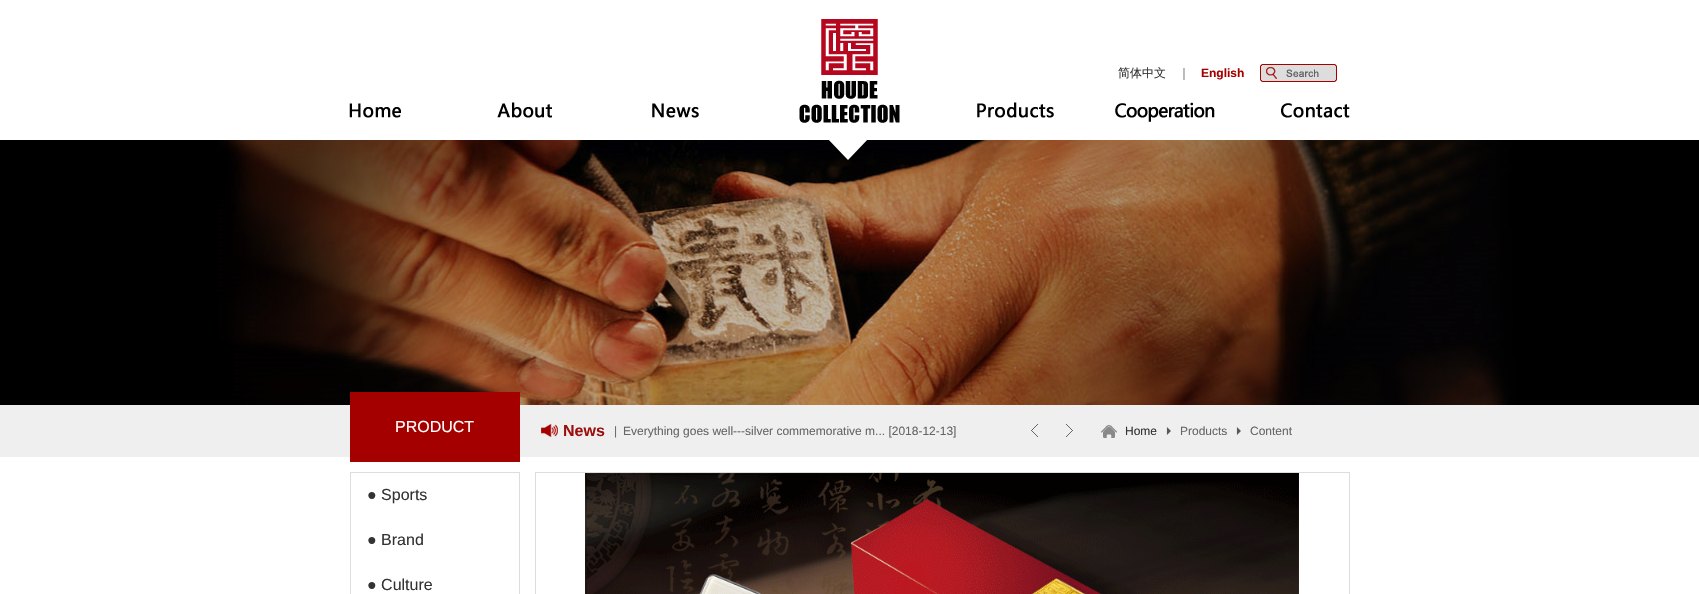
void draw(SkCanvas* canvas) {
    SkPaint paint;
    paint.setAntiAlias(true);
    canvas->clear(0xFFFFFFFF);
    canvas->drawImageRect(SkImages::DeferredFromEncodedData(SkData::MakeFromFileName("img9.png")), SkRect::MakeXYWH(0, 140, 1699, 265), SkSamplingOptions());
    canvas->drawImageRect(SkImages::DeferredFromEncodedData(SkData::MakeFromFileName("img1.png")), SkRect::MakeXYWH(799, 19, 101, 141), SkSamplingOptions());
    SkFont font1(fontMgr->matchFamilyStyle("WenQuanYi Zen Hei", SkFontStyle(500, SkFontStyle::kNormal_Width, SkFontStyle::kUpright_Slant)), 12);
    font1.setSubpixel(true);
    paint.setColor(0xFF333333);
    canvas->drawString("简体中文", 1118, 77, font1, paint);
    paint.setColor(0xFF666666);
    canvas->drawString("｜", 1178, 77, font1, paint);
    SkFont font2(fontMgr->matchFamilyStyle("Liberation Sans", SkFontStyle::Bold()), 12);
    font2.setSubpixel(true);
    paint.setColor(0xFFA40000);
    canvas->drawString("English", 1201, 77, font2, paint);
    canvas->drawImageRect(SkImages::DeferredFromEncodedData(SkData::MakeFromFileName("img2.png")), SkRect::MakeXYWH(1260, 64, 77, 18), SkSamplingOptions());
    canvas->drawImageRect(SkImages::DeferredFromEncodedData(SkData::MakeFromFileName("img3.png")), SkRect::MakeXYWH(349, 103, 52, 15), SkSamplingOptions());
    canvas->drawImageRect(SkImages::DeferredFromEncodedData(SkData::MakeFromFileName("img4.png")), SkRect::MakeXYWH(497, 102, 55, 16), SkSamplingOptions());
    canvas->drawImageRect(SkImages::DeferredFromEncodedData(SkData::MakeFromFileName("img5.png")), SkRect::MakeXYWH(652, 103, 47, 15), SkSamplingOptions());
    canvas->drawImageRect(SkImages::DeferredFromEncodedData(SkData::MakeFromFileName("img6.png")), SkRect::MakeXYWH(977, 102, 77, 16), SkSamplingOptions());
    canvas->drawImageRect(SkImages::DeferredFromEncodedData(SkData::MakeFromFileName("img7.png")), SkRect::MakeXYWH(1115, 102, 100, 20), SkSamplingOptions());
    canvas->drawImageRect(SkImages::DeferredFromEncodedData(SkData::MakeFromFileName("img8.png")), SkRect::MakeXYWH(1281, 103, 69, 15), SkSamplingOptions());
    paint.setColor(0xFFEFEFF0);
    canvas->drawRect(SkRect::MakeXYWH(0, 405, 1699, 52), paint);
    paint.setColor(0xFFA40000);
    canvas->drawRect(SkRect::MakeXYWH(350, 392, 170, 70), paint);
    SkFont font3(fontMgr->matchFamilyStyle("Liberation Sans", SkFontStyle::Normal()), 16);
    font3.setSubpixel(true);
    paint.setColor(0xFFFFFFFF);
    canvas->drawString("PRODUCT", 395, 432, font3, paint);
    paint.setStyle(SkPaint::kStroke_Style);
    paint.setStrokeWidth(1);
    paint.setColor(0xFFDCDDDD);
    canvas->drawRect(SkRect::MakeXYWH(350.5f, 472.5f, 169, 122), paint);
    paint.setStyle(SkPaint::kFill_Style);
    paint.setColor(0xFF333333);
    canvas->drawString("● Sports", 367, 500, font3, paint);
    canvas->drawString("● Brand", 367, 545, font3, paint);
    canvas->drawString("● Culture", 367, 590, font3, paint);
    paint.setStyle(SkPaint::kStroke_Style);
    paint.setColor(0xFFDCDDDD);
    canvas->drawRect(SkRect::MakeXYWH(535.5f, 472.5f, 814, 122), paint);
    canvas->drawImageRect(SkImages::DeferredFromEncodedData(SkData::MakeFromFileName("img10.png")), SkRect::MakeXYWH(585, 473, 714, 121), SkSamplingOptions());
    canvas->drawImageRect(SkImages::DeferredFromEncodedData(SkData::MakeFromFileName("img11.png")), SkRect::MakeXYWH(541, 424, 17, 13), SkSamplingOptions());
    SkFont font4(fontMgr->matchFamilyStyle("Liberation Sans", SkFontStyle::Bold()), 16);
    font4.setSubpixel(true);
    paint.setStyle(SkPaint::kFill_Style);
    paint.setColor(0xFF9E1010);
    canvas->drawString("News", 563, 436, font4, paint);
    SkFont font5(fontMgr->matchFamilyStyle("Liberation Sans", SkFontStyle::Normal()), 12);
    font5.setSubpixel(true);
    paint.setColor(0xFF666666);
    canvas->drawString("|", 614, 435, font5, paint);
    canvas->drawString("Everything goes well---silver commemorative m... [2018-12-13]", 623, 435, font5, paint);
    canvas->drawImageRect(SkImages::DeferredFromEncodedData(SkData::MakeFromFileName("img12.png")), SkRect::MakeXYWH(1031, 424, 7, 13), SkSamplingOptions());
    canvas->drawImageRect(SkImages::DeferredFromEncodedData(SkData::MakeFromFileName("img13.png")), SkRect::MakeXYWH(1066, 424, 7, 13), SkSamplingOptions());
    canvas->drawImageRect(SkImages::DeferredFromEncodedData(SkData::MakeFromFileName("img14.png")), SkRect::MakeXYWH(1101, 425, 16, 13), SkSamplingOptions());
    paint.setColor(0xFF333333);
    canvas->drawString("Home", 1125, 435, font5, paint);
    canvas->drawImageRect(SkImages::DeferredFromEncodedData(SkData::MakeFromFileName("img15.png")), SkRect::MakeXYWH(1166, 427, 5, 8), SkSamplingOptions());
    paint.setColor(0xFF666666);
    canvas->drawString("Products", 1180, 435, font5, paint);
    canvas->drawImageRect(SkImages::DeferredFromEncodedData(SkData::MakeFromFileName("img15.png")), SkRect::MakeXYWH(1236, 427, 5, 8), SkSamplingOptions());
    canvas->drawString("Content", 1250, 435, font5, paint);
}
